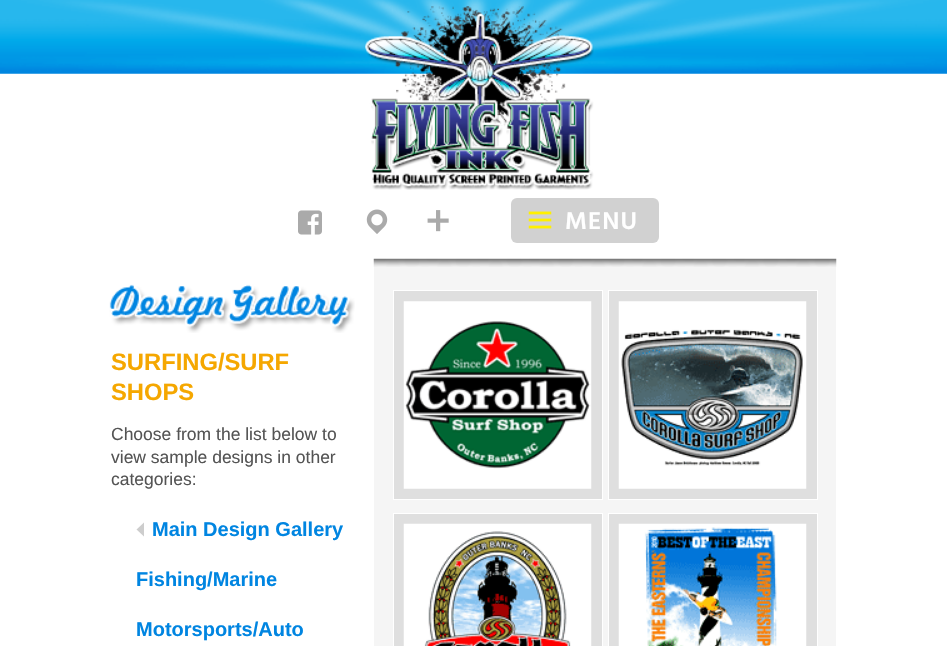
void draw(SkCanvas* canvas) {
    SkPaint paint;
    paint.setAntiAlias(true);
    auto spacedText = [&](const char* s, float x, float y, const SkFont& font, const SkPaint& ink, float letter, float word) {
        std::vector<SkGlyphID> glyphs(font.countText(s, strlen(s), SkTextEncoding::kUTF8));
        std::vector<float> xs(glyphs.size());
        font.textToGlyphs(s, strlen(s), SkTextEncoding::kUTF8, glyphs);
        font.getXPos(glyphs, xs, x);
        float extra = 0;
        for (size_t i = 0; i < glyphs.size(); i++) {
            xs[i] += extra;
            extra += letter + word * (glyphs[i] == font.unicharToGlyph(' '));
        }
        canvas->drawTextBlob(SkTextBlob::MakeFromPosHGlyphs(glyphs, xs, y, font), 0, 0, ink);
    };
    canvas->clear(0xFFFFFFFF);
    canvas->drawImageRect(SkImages::DeferredFromEncodedData(SkData::MakeFromFileName("img1.png")), SkRect::MakeXYWH(0, 0, 947, 74), SkSamplingOptions());
    canvas->drawImageRect(SkImages::DeferredFromEncodedData(SkData::MakeFromFileName("img2.png")), SkRect::MakeXYWH(365, 6, 229, 184), SkSamplingOptions());
    canvas->drawImageRect(SkImages::DeferredFromEncodedData(SkData::MakeFromFileName("img3.png")), SkRect::MakeXYWH(298, 210, 24, 25), SkSamplingOptions());
    canvas->drawImageRect(SkImages::DeferredFromEncodedData(SkData::MakeFromFileName("img4.png")), SkRect::MakeXYWH(366, 209, 22, 25), SkSamplingOptions());
    canvas->drawImageRect(SkImages::DeferredFromEncodedData(SkData::MakeFromFileName("img5.png")), SkRect::MakeXYWH(427, 210, 22, 22), SkSamplingOptions());
    paint.setColor(0xFFD1D1D1);
    canvas->drawRoundRect(SkRect::MakeXYWH(511, 198, 148, 45), 6, 6, paint);
    canvas->drawImageRect(SkImages::DeferredFromEncodedData(SkData::MakeFromFileName("img6.png")), SkRect::MakeXYWH(528, 211, 24, 18), SkSamplingOptions());
    SkFont font1(fontMgr->matchFamilyStyle("Hind", SkFontStyle(600, SkFontStyle::kNormal_Width, SkFontStyle::kUpright_Slant)), 25);
    font1.setSubpixel(true);
    paint.setColor(0xFFFFFFFF);
    spacedText("MENU", 565, 229, font1, paint, 1, 0);
    canvas->drawImageRect(SkImages::DeferredFromEncodedData(SkData::MakeFromFileName("img7.png")), SkRect::MakeXYWH(109, 284, 246, 49), SkSamplingOptions());
    SkFont font2(fontMgr->matchFamilyStyle("Liberation Sans", SkFontStyle::Bold()), 23.75f);
    font2.setSubpixel(true);
    paint.setColor(0xFFF5A700);
    canvas->drawString("SURFING/SURF", 111, 370, font2, paint);
    canvas->drawString("SHOPS", 111, 400, font2, paint);
    SkFont font3(fontMgr->matchFamilyStyle("Liberation Sans", SkFontStyle::Normal()), 17.5f);
    font3.setSubpixel(true);
    paint.setColor(0xFF545454);
    canvas->drawString("Choose from the list below to", 111, 440, font3, paint);
    canvas->drawString("view sample designs in other", 111, 463, font3, paint);
    canvas->drawString("categories:", 111, 485, font3, paint);
    paint.setColor(0xFFCDCDCD);
    canvas->drawPath(SkPathBuilder().moveTo(144, 522.5f).lineTo(144, 536.5f).lineTo(136.5f, 529.5f).close().detach(), paint);
    SkFont font4(fontMgr->matchFamilyStyle("Liberation Sans", SkFontStyle::Bold()), 20);
    font4.setSubpixel(true);
    paint.setColor(0xFF0085E1);
    canvas->drawString("Main Design Gallery", 152, 536, font4, paint);
    canvas->drawString("Fishing/Marine", 136, 586, font4, paint);
    canvas->drawString("Motorsports/Auto", 136, 636, font4, paint);
    paint.setColor(0xFFF5F5F5);
    canvas->drawRect(SkRect::MakeXYWH(374, 267, 462, 379), paint);
    canvas->drawImageRect(SkImages::DeferredFromEncodedData(SkData::MakeFromFileName("img8.png")), SkRect::MakeXYWH(373, 258, 464, 9), SkSamplingOptions());
    paint.setColor(0xFFDFDFDF);
    canvas->drawRect(SkRect::MakeXYWH(393.5f, 290.5f, 209, 209), paint);
    paint.setStyle(SkPaint::kStroke_Style);
    paint.setStrokeWidth(1);
    paint.setColor(0xFFFFFFFF);
    canvas->drawRect(SkRect::MakeXYWH(393.5f, 290.5f, 209, 209), paint);
    canvas->drawImageRect(SkImages::DeferredFromEncodedData(SkData::MakeFromFileName("img9.png")), SkRect::MakeXYWH(403, 301, 189, 188), SkSamplingOptions());
    paint.setStyle(SkPaint::kFill_Style);
    paint.setColor(0xFFDFDFDF);
    canvas->drawRect(SkRect::MakeXYWH(608.5f, 290.5f, 209, 209), paint);
    paint.setStyle(SkPaint::kStroke_Style);
    paint.setColor(0xFFFFFFFF);
    canvas->drawRect(SkRect::MakeXYWH(608.5f, 290.5f, 209, 209), paint);
    canvas->drawImageRect(SkImages::DeferredFromEncodedData(SkData::MakeFromFileName("img10.png")), SkRect::MakeXYWH(618, 301, 189, 188), SkSamplingOptions());
    paint.setStyle(SkPaint::kFill_Style);
    paint.setColor(0xFFDFDFDF);
    canvas->drawRect(SkRect::MakeXYWH(393.5f, 513.5f, 209, 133), paint);
    paint.setStyle(SkPaint::kStroke_Style);
    paint.setColor(0xFFFFFFFF);
    canvas->drawRect(SkRect::MakeXYWH(393.5f, 513.5f, 209, 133), paint);
    canvas->drawImageRect(SkImages::DeferredFromEncodedData(SkData::MakeFromFileName("img11.png")), SkRect::MakeXYWH(403, 523, 189, 123), SkSamplingOptions());
    paint.setStyle(SkPaint::kFill_Style);
    paint.setColor(0xFFDFDFDF);
    canvas->drawRect(SkRect::MakeXYWH(608.5f, 513.5f, 209, 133), paint);
    paint.setStyle(SkPaint::kStroke_Style);
    paint.setColor(0xFFFFFFFF);
    canvas->drawRect(SkRect::MakeXYWH(608.5f, 513.5f, 209, 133), paint);
    canvas->drawImageRect(SkImages::DeferredFromEncodedData(SkData::MakeFromFileName("img12.png")), SkRect::MakeXYWH(618, 523, 189, 123), SkSamplingOptions());
}
